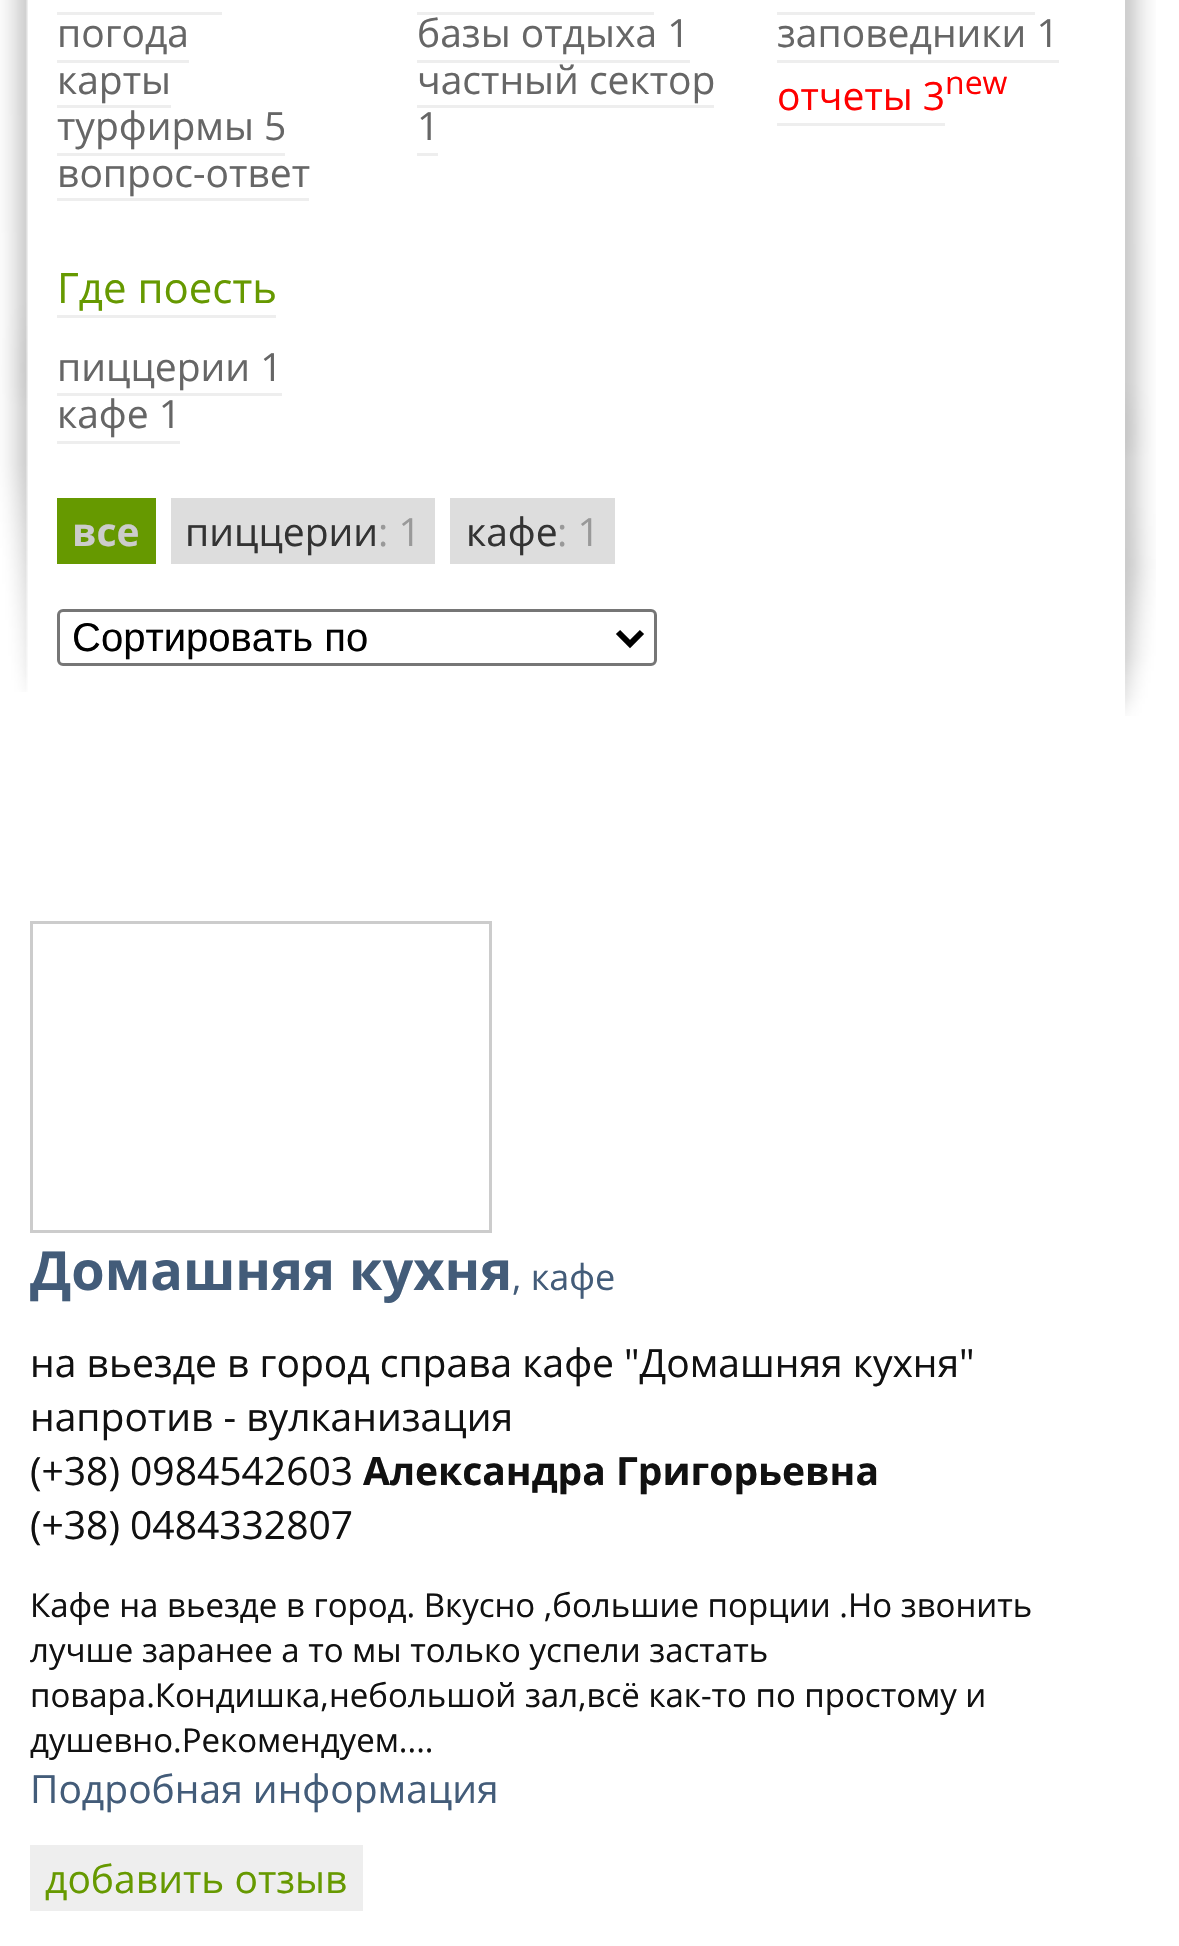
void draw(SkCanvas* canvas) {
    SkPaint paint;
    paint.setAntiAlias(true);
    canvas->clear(0xFFFFFFFF);
    canvas->drawImageRect(SkImages::DeferredFromEncodedData(SkData::MakeFromFileName("img1.png")), SkRect::MakeXYWH(0, 0, 28, 692), SkSamplingOptions());
    canvas->drawImageRect(SkImages::DeferredFromEncodedData(SkData::MakeFromFileName("img2.png")), SkRect::MakeXYWH(1125, 0, 31, 716), SkSamplingOptions());
    paint.setColor(0xFFEEEEEE);
    canvas->drawRect(SkRect::MakeXYWH(57, 12, 165, 3), paint);
    SkFont font1(fontMgr->matchFamilyStyle("Open Sans", SkFontStyle::Normal()), 39);
    font1.setSubpixel(true);
    paint.setColor(0xFF666666);
    canvas->drawString("погода", 57, 47, font1, paint);
    paint.setColor(0xFFEEEEEE);
    canvas->drawRect(SkRect::MakeXYWH(57, 60, 132, 3), paint);
    paint.setColor(0xFF666666);
    canvas->drawString("карты", 57, 94, font1, paint);
    paint.setColor(0xFFEEEEEE);
    canvas->drawRect(SkRect::MakeXYWH(57, 105, 114, 3), paint);
    paint.setColor(0xFF666666);
    canvas->drawString("турфирмы 5", 57, 140, font1, paint);
    paint.setColor(0xFFEEEEEE);
    canvas->drawRect(SkRect::MakeXYWH(57, 153, 228, 3), paint);
    paint.setColor(0xFF666666);
    canvas->drawString("вопрос-ответ", 57, 187, font1, paint);
    paint.setColor(0xFFEEEEEE);
    canvas->drawRect(SkRect::MakeXYWH(57, 198, 252, 3), paint);
    canvas->drawRect(SkRect::MakeXYWH(417, 12, 237, 3), paint);
    paint.setColor(0xFF666666);
    canvas->drawString("базы отдыха 1", 417, 47, font1, paint);
    paint.setColor(0xFFEEEEEE);
    canvas->drawRect(SkRect::MakeXYWH(417, 60, 273, 3), paint);
    paint.setColor(0xFF666666);
    canvas->drawString("частный сектор", 417, 94, font1, paint);
    canvas->drawString("1", 417, 140, font1, paint);
    paint.setColor(0xFFEEEEEE);
    canvas->drawRect(SkRect::MakeXYWH(417, 105, 297, 3), paint);
    canvas->drawRect(SkRect::MakeXYWH(417, 153, 21, 3), paint);
    canvas->drawRect(SkRect::MakeXYWH(777, 12, 258, 3), paint);
    paint.setColor(0xFF666666);
    canvas->drawString("заповедники 1", 777, 47, font1, paint);
    paint.setColor(0xFFEEEEEE);
    canvas->drawRect(SkRect::MakeXYWH(777, 60, 282, 3), paint);
    paint.setColor(0xFFFF0000);
    canvas->drawString("отчеты 3", 777, 110, font1, paint);
    paint.setColor(0xFFEEEEEE);
    canvas->drawRect(SkRect::MakeXYWH(777, 123, 168, 3), paint);
    SkFont font2(fontMgr->matchFamilyStyle("Open Sans", SkFontStyle::Normal()), 32);
    font2.setSubpixel(true);
    paint.setColor(0xFFFF0000);
    canvas->drawString("new", 945, 94, font2, paint);
    SkFont font3(fontMgr->matchFamilyStyle("Open Sans", SkFontStyle::Normal()), 42);
    font3.setSubpixel(true);
    paint.setColor(0xFF669900);
    canvas->drawString("Где поесть", 57, 303, font3, paint);
    paint.setColor(0xFFEEEEEE);
    canvas->drawRect(SkRect::MakeXYWH(57, 315, 219, 3), paint);
    paint.setColor(0xFF666666);
    canvas->drawString("пиццерии 1", 57, 381, font1, paint);
    paint.setColor(0xFFEEEEEE);
    canvas->drawRect(SkRect::MakeXYWH(57, 393, 225, 3), paint);
    paint.setColor(0xFF666666);
    canvas->drawString("кафе 1", 57, 428, font1, paint);
    paint.setColor(0xFFEEEEEE);
    canvas->drawRect(SkRect::MakeXYWH(57, 441, 123, 3), paint);
    paint.setColor(0xFF669900);
    canvas->drawRect(SkRect::MakeXYWH(57, 498, 99, 66), paint);
    SkFont font4(fontMgr->matchFamilyStyle("Open Sans", SkFontStyle::Bold()), 39);
    font4.setSubpixel(true);
    paint.setColor(0xFFCCCCCC);
    canvas->drawString("все", 72, 546, font4, paint);
    paint.setColor(0xFFDDDDDD);
    canvas->drawRect(SkRect::MakeXYWH(171, 498, 264, 66), paint);
    paint.setColor(0xFF333333);
    canvas->drawString("пиццерии", 185, 546, font1, paint);
    paint.setColor(0xFF999999);
    canvas->drawString(": 1", 378, 546, font1, paint);
    paint.setColor(0xFFDDDDDD);
    canvas->drawRect(SkRect::MakeXYWH(450, 498, 165, 66), paint);
    paint.setColor(0xFF333333);
    canvas->drawString("кафе", 466, 546, font1, paint);
    paint.setColor(0xFF999999);
    canvas->drawString(": 1", 557, 546, font1, paint);
    paint.setStyle(SkPaint::kStroke_Style);
    paint.setStrokeWidth(3);
    paint.setColor(0xFF767676);
    canvas->drawRoundRect(SkRect::MakeXYWH(58.5f, 610.5f, 597, 54), 4.5f, 4.5f, paint);
    paint.setStrokeWidth(6);
    paint.setColor(0xFF000000);
    canvas->drawPath(SkPathBuilder().moveTo(618, 632).lineTo(630, 644).lineTo(642, 632).detach(), paint);
    SkFont font5(fontMgr->matchFamilyStyle("Liberation Sans", SkFontStyle::Normal()), 40);
    font5.setSubpixel(true);
    paint.setStyle(SkPaint::kFill_Style);
    canvas->drawString("Сортировать по", 72, 651, font5, paint);
    paint.setStyle(SkPaint::kStroke_Style);
    paint.setStrokeWidth(3);
    paint.setColor(0xFFCCCCCC);
    canvas->drawRect(SkRect::MakeXYWH(31.5f, 922.5f, 459, 309), paint);
    SkFont font6(fontMgr->matchFamilyStyle("Open Sans", SkFontStyle::Bold()), 54);
    font6.setSubpixel(true);
    paint.setStyle(SkPaint::kFill_Style);
    paint.setColor(0xFF435C79);
    canvas->drawString("Домашняя кухня", 30, 1290, font6, paint);
    SkFont font7(fontMgr->matchFamilyStyle("Open Sans", SkFontStyle::Normal()), 36);
    font7.setSubpixel(true);
    canvas->drawString(", кафе", 512, 1290, font7, paint);
    paint.setColor(0xFF111111);
    canvas->drawString("на вьезде в город справа кафе \"Домашняя кухня\"", 30, 1377, font1, paint);
    canvas->drawString("напротив - вулканизация", 30, 1431, font1, paint);
    canvas->drawString("(+38) 0984542603", 30, 1485, font1, paint);
    canvas->drawString("Александра Григорьевна", 363, 1485, font4, paint);
    canvas->drawString("(+38) 0484332807", 30, 1539, font1, paint);
    SkFont font8(fontMgr->matchFamilyStyle("Open Sans", SkFontStyle::Normal()), 33);
    font8.setSubpixel(true);
    canvas->drawString("Кафе на вьезде в город. Вкусно ,большие порции .Но звонить", 30, 1617, font8, paint);
    canvas->drawString("лучше заранее а то мы только успели застать", 30, 1662, font8, paint);
    canvas->drawString("повара.Кондишка,небольшой зал,всё как-то по простому и", 30, 1707, font8, paint);
    canvas->drawString("душевно.Рекомендуем....", 30, 1752, font8, paint);
    paint.setColor(0xFF435C79);
    canvas->drawString("Подробная информация", 30, 1803, font1, paint);
    paint.setColor(0xFFEEEEEE);
    canvas->drawRect(SkRect::MakeXYWH(30, 1845, 333, 66), paint);
    paint.setColor(0xFF669900);
    canvas->drawString("добавить отзыв", 45, 1893, font1, paint);
}
